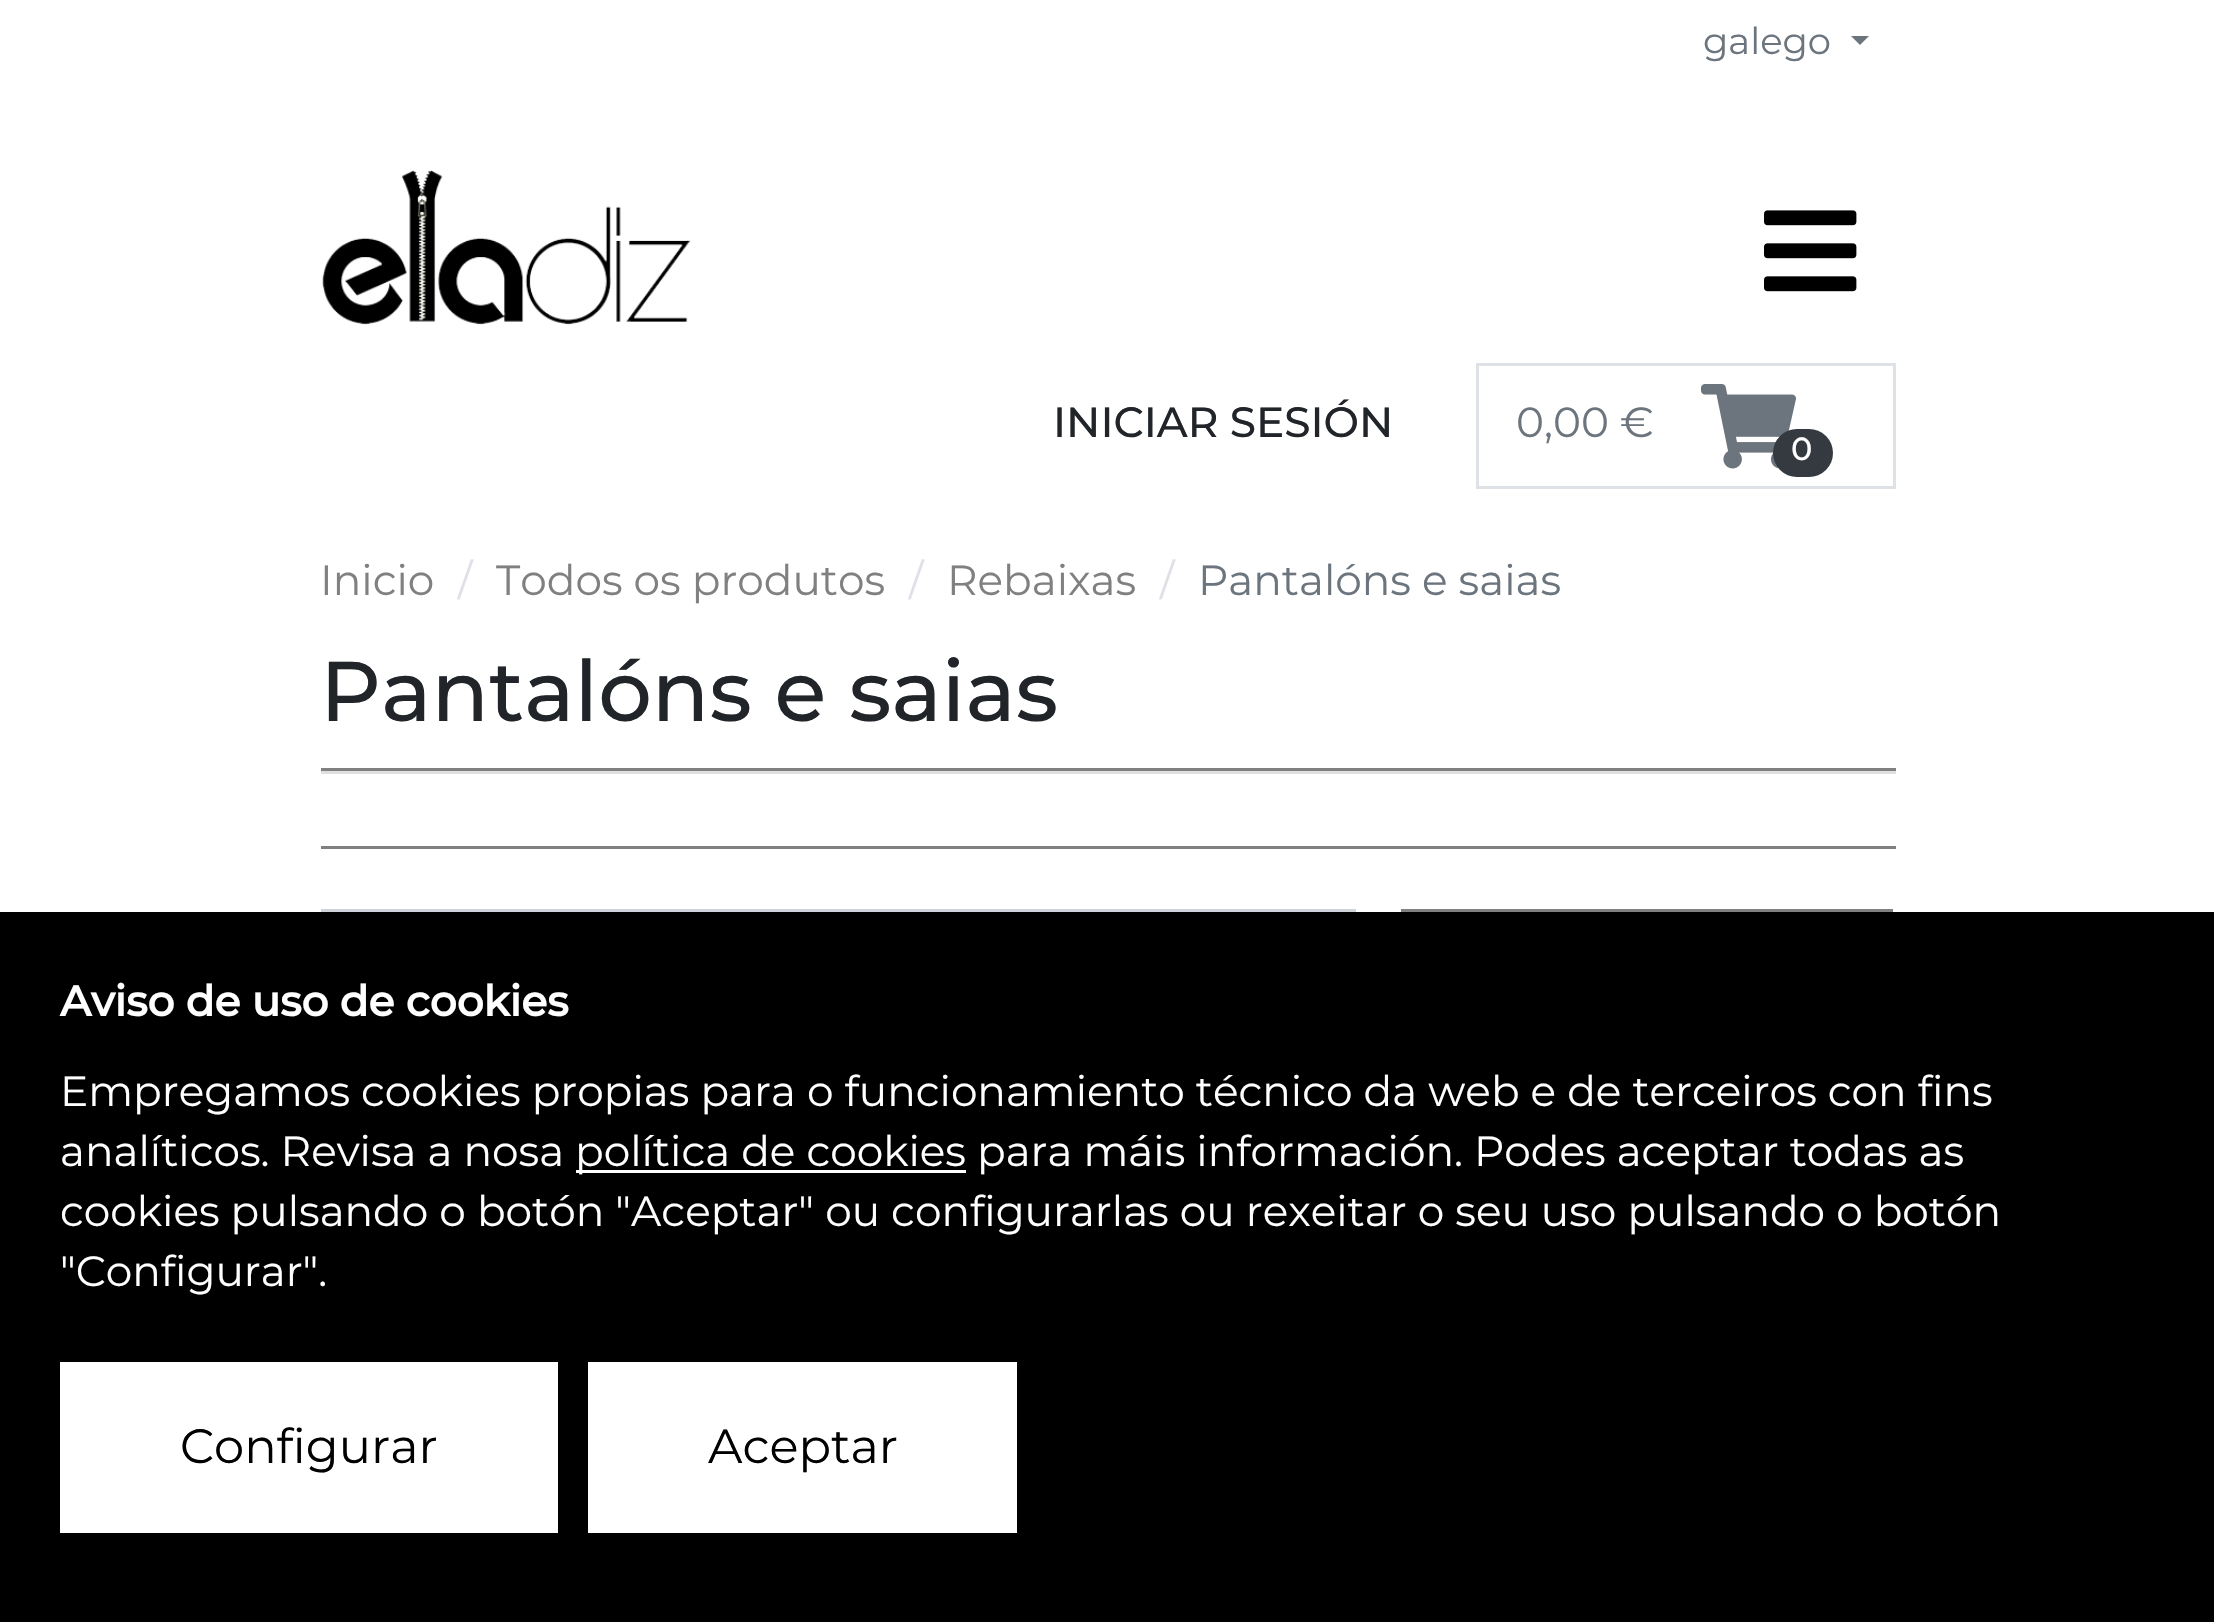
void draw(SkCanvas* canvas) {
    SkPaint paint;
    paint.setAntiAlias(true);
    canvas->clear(0xFFFFFFFF);
    SkFont font1(fontMgr->matchFamilyStyle("Montserrat", SkFontStyle::Normal()), 37);
    font1.setSubpixel(true);
    paint.setColor(0xFF6C757D);
    canvas->drawString("galego", 1703, 54, font1, paint);
    canvas->drawPath(SkPathBuilder().moveTo(1851, 36).lineTo(1869, 36).lineTo(1860, 45).close().detach(), paint);
    canvas->drawImageRect(SkImages::DeferredFromEncodedData(SkData::MakeFromFileName("img1.png")), SkRect::MakeXYWH(322, 170, 369, 155), SkSamplingOptions());
    canvas->drawImageRect(SkImages::DeferredFromEncodedData(SkData::MakeFromFileName("img2.png")), SkRect::MakeXYWH(1764, 210, 93, 82), SkSamplingOptions());
    SkFont font2(fontMgr->matchFamilyStyle("Montserrat", SkFontStyle(500, SkFontStyle::kNormal_Width, SkFontStyle::kUpright_Slant)), 42.25f);
    font2.setSubpixel(true);
    paint.setColor(0xFF212529);
    canvas->drawString("INICIAR SESIÓN", 1053, 437, font2, paint);
    paint.setStyle(SkPaint::kStroke_Style);
    paint.setStrokeWidth(3);
    paint.setColor(0xFFDEE2E6);
    canvas->drawRect(SkRect::MakeXYWH(1477.5f, 364.5f, 417, 123), paint);
    SkFont font3(fontMgr->matchFamilyStyle("Montserrat", SkFontStyle::Normal()), 42.25f);
    font3.setSubpixel(true);
    paint.setStyle(SkPaint::kFill_Style);
    paint.setColor(0xFF6C757D);
    canvas->drawString("0,00 €", 1516, 437, font3, paint);
    canvas->drawImageRect(SkImages::DeferredFromEncodedData(SkData::MakeFromFileName("img3.png")), SkRect::MakeXYWH(1701, 384, 95, 85), SkSamplingOptions());
    paint.setColor(0xFF343A40);
    canvas->drawRoundRect(SkRect::MakeXYWH(1773, 429, 60, 48), 24, 24, paint);
    SkFont font4(fontMgr->matchFamilyStyle("Montserrat", SkFontStyle(500, SkFontStyle::kNormal_Width, SkFontStyle::kUpright_Slant)), 32);
    font4.setSubpixel(true);
    paint.setColor(0xFFFFFFFF);
    canvas->drawString("0", 1791, 460, font4, paint);
    paint.setColor(0xFF808080);
    canvas->drawString("Inicio", 320, 595, font3, paint);
    paint.setColor(0xFFDEE2E6);
    canvas->drawString("/", 458, 595, font3, paint);
    paint.setColor(0xFF808080);
    canvas->drawString("Todos os produtos", 496, 595, font3, paint);
    paint.setColor(0xFFDEE2E6);
    canvas->drawString("/", 909, 595, font3, paint);
    paint.setColor(0xFF808080);
    canvas->drawString("Rebaixas", 947, 595, font3, paint);
    paint.setColor(0xFFDEE2E6);
    canvas->drawString("/", 1160, 595, font3, paint);
    paint.setColor(0xFF6C757D);
    canvas->drawString("Pantalóns e saias", 1198, 595, font3, paint);
    SkFont font5(fontMgr->matchFamilyStyle("Montserrat", SkFontStyle(500, SkFontStyle::kNormal_Width, SkFontStyle::kUpright_Slant)), 84.5f);
    font5.setSubpixel(true);
    paint.setColor(0xFF212529);
    canvas->drawString("Pantalóns e saias", 320, 721, font5, paint);
    paint.setColor(0xFF808080);
    canvas->drawRect(SkRect::MakeXYWH(321, 768, 1575, 3), paint);
    paint.setColor(0xFFDFDFDF);
    canvas->drawRect(SkRect::MakeXYWH(321, 771, 1575, 3), paint);
    paint.setColor(0xFF808080);
    canvas->drawRect(SkRect::MakeXYWH(321, 846, 1575, 3), paint);
    paint.setStyle(SkPaint::kStroke_Style);
    paint.setColor(0xFFCED4DA);
    canvas->drawRect(SkRect::MakeXYWH(322.5f, 910.5f, 1032, 111), paint);
    paint.setStyle(SkPaint::kFill_Style);
    paint.setColor(0xFF808080);
    canvas->drawRect(SkRect::MakeXYWH(1401, 909, 492, 3), paint);
    paint.setColor(0xFF000000);
    canvas->drawRect(SkRect::MakeXYWH(0, 912, 2214, 710), paint);
    SkFont font6(fontMgr->matchFamilyStyle("Montserrat", SkFontStyle::Bold()), 42.25f);
    font6.setSubpixel(true);
    paint.setColor(0xFFFFFFFF);
    canvas->drawString("Aviso de uso de cookies", 60, 1016, font6, paint);
    canvas->drawString("Empregamos cookies propias para o funcionamiento técnico da web e de terceiros con fins", 60, 1106, font3, paint);
    canvas->drawString("analíticos. Revisa a nosa", 60, 1166, font3, paint);
    canvas->drawRect(SkRect::MakeXYWH(576, 1170, 390, 3), paint);
    canvas->drawString("política de cookies para máis información. Podes aceptar todas as", 575, 1166, font3, paint);
    canvas->drawString("cookies pulsando o botón \"Aceptar\" ou configurarlas ou rexeitar o seu uso pulsando o botón", 60, 1226, font3, paint);
    canvas->drawString("\"Configurar\".", 60, 1286, font3, paint);
    canvas->drawRect(SkRect::MakeXYWH(60, 1362, 498, 171), paint);
    SkFont font7(fontMgr->matchFamilyStyle("Montserrat", SkFontStyle::Normal()), 48);
    font7.setSubpixel(true);
    paint.setColor(0xFF000000);
    canvas->drawString("Configurar", 180, 1463, font7, paint);
    paint.setColor(0xFFFFFFFF);
    canvas->drawRect(SkRect::MakeXYWH(588, 1362, 429, 171), paint);
    paint.setColor(0xFF000000);
    canvas->drawString("Aceptar", 708, 1463, font7, paint);
}
